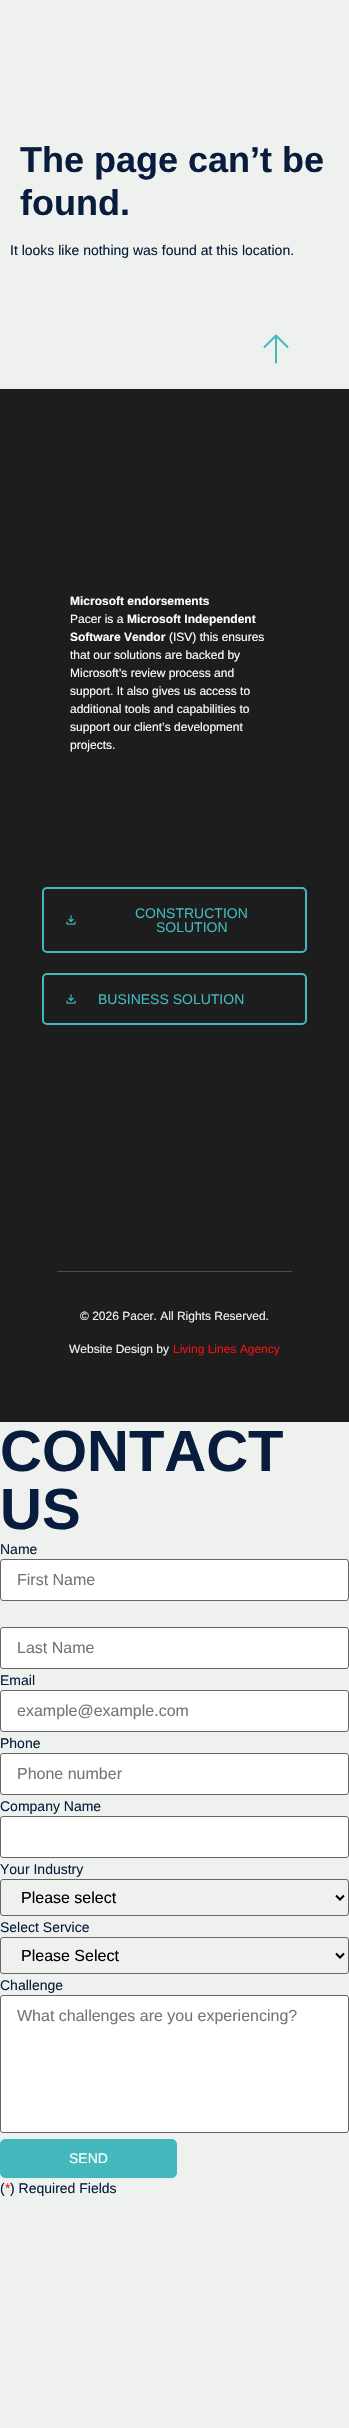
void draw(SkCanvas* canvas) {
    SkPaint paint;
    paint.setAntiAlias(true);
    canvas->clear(0xFFEFF1EE);
    SkFont font1(fontMgr->matchFamilyStyle("Liberation Sans", SkFontStyle::Bold()), 36);
    font1.setSubpixel(true);
    paint.setColor(0xFF081C3D);
    canvas->drawString("The page can’t be", 20, 172, font1, paint);
    canvas->drawString("found.", 20, 215, font1, paint);
    SkFont font2(fontMgr->matchFamilyStyle("Liberation Sans", SkFontStyle::Normal()), 14);
    font2.setSubpixel(true);
    canvas->drawString("It looks like nothing was found at this location.", 10, 255, font2, paint);
    paint.setStyle(SkPaint::kStroke_Style);
    paint.setStrokeWidth(2);
    paint.setStrokeCap(SkPaint::kRound_Cap);
    paint.setStrokeJoin(SkPaint::kRound_Join);
    paint.setColor(0xFF43B9BD);
    canvas->drawPath(SkPathBuilder().moveTo(276, 335.5f).lineTo(287.5f, 347).moveTo(276, 335.5f).lineTo(264.5f, 347).moveTo(276, 335.5f).lineTo(276, 362.5f).detach(), paint);
    paint.setStyle(SkPaint::kFill_Style);
    paint.setColor(0xFF1D1D1D);
    canvas->drawRect(SkRect::MakeXYWH(0, 389, 349, 1033), paint);
    SkFont font3(fontMgr->matchFamilyStyle("Liberation Sans", SkFontStyle::Bold()), 12);
    font3.setSubpixel(true);
    paint.setColor(0xFFFFFFFF);
    canvas->drawString("Microsoft endorsements", 70, 605, font3, paint);
    SkFont font4(fontMgr->matchFamilyStyle("Liberation Sans", SkFontStyle::Normal()), 12);
    font4.setSubpixel(true);
    canvas->drawString("Pacer is a", 70, 623, font4, paint);
    canvas->drawString("Microsoft Independent", 127, 623, font3, paint);
    canvas->drawString("Software Vendor", 70, 641, font3, paint);
    canvas->drawString("(ISV) this ensures", 169, 641, font4, paint);
    canvas->drawString("that our solutions are backed by", 70, 659, font4, paint);
    canvas->drawString("Microsoft’s review process and", 70, 677, font4, paint);
    canvas->drawString("support. It also gives us access to", 70, 695, font4, paint);
    canvas->drawString("additional tools and capabilities to", 70, 713, font4, paint);
    canvas->drawString("support our client’s development", 70, 731, font4, paint);
    canvas->drawString("projects.", 70, 749, font4, paint);
    paint.setStyle(SkPaint::kStroke_Style);
    paint.setStrokeCap(SkPaint::kButt_Cap);
    paint.setStrokeJoin(SkPaint::kMiter_Join);
    paint.setColor(0xFF43B9BD);
    canvas->drawRoundRect(SkRect::MakeXYWH(43, 888, 263, 64), 4, 4, paint);
    canvas->drawImageRect(SkImages::DeferredFromEncodedData(SkData::MakeFromFileName("img1.png")), SkRect::MakeXYWH(66, 915, 10, 10), SkSamplingOptions());
    paint.setStyle(SkPaint::kFill_Style);
    canvas->drawString("CONSTRUCTION", 135, 918, font2, paint);
    canvas->drawString("SOLUTION", 156, 932, font2, paint);
    paint.setStyle(SkPaint::kStroke_Style);
    canvas->drawRoundRect(SkRect::MakeXYWH(43, 974, 263, 50), 4, 4, paint);
    canvas->drawImageRect(SkImages::DeferredFromEncodedData(SkData::MakeFromFileName("img1.png")), SkRect::MakeXYWH(66, 994, 10, 10), SkSamplingOptions());
    paint.setStyle(SkPaint::kFill_Style);
    canvas->drawString("BUSINESS SOLUTION", 98, 1004, font2, paint);
    paint.setColor(0xFF454E5D);
    canvas->drawRect(SkRect::MakeXYWH(57, 1271, 235, 1), paint);
    paint.setColor(0xFFEFF1EE);
    canvas->drawString("© 2026 Pacer. All Rights Reserved.", 80, 1320, font4, paint);
    canvas->drawString("Website Design by", 69, 1353, font4, paint);
    paint.setColor(0xFFF40F0F);
    canvas->drawString("Living Lines Agency", 173, 1353, font4, paint);
    SkFont font5(fontMgr->matchFamilyStyle("Liberation Sans", SkFontStyle::Bold()), 58);
    font5.setSubpixel(true);
    paint.setColor(0xFF081C3D);
    canvas->drawString("CONTACT", 0, 1471, font5, paint);
    canvas->drawString("US", 0, 1529, font5, paint);
    canvas->drawString("Name", 0, 1554, font2, paint);
    paint.setColor(0xFFFFFFFF);
    canvas->drawRoundRect(SkRect::MakeXYWH(0.5f, 1559.5f, 348, 41), 2.5f, 2.5f, paint);
    paint.setStyle(SkPaint::kStroke_Style);
    paint.setStrokeWidth(1);
    paint.setColor(0xFF666666);
    canvas->drawRoundRect(SkRect::MakeXYWH(0.5f, 1559.5f, 348, 41), 2.5f, 2.5f, paint);
    SkFont font6(fontMgr->matchFamilyStyle("Liberation Sans", SkFontStyle::Normal()), 16);
    font6.setSubpixel(true);
    paint.setStyle(SkPaint::kFill_Style);
    paint.setColor(0xFF757575);
    canvas->drawString("First Name", 17, 1585, font6, paint);
    paint.setColor(0xFFFFFFFF);
    canvas->drawRoundRect(SkRect::MakeXYWH(0.5f, 1627.5f, 348, 41), 2.5f, 2.5f, paint);
    paint.setStyle(SkPaint::kStroke_Style);
    paint.setColor(0xFF666666);
    canvas->drawRoundRect(SkRect::MakeXYWH(0.5f, 1627.5f, 348, 41), 2.5f, 2.5f, paint);
    paint.setStyle(SkPaint::kFill_Style);
    paint.setColor(0xFF757575);
    canvas->drawString("Last Name", 17, 1653, font6, paint);
    paint.setColor(0xFF081C3D);
    canvas->drawString("Email", 0, 1685, font2, paint);
    paint.setColor(0xFFFFFFFF);
    canvas->drawRoundRect(SkRect::MakeXYWH(0.5f, 1690.5f, 348, 41), 2.5f, 2.5f, paint);
    paint.setStyle(SkPaint::kStroke_Style);
    paint.setColor(0xFF666666);
    canvas->drawRoundRect(SkRect::MakeXYWH(0.5f, 1690.5f, 348, 41), 2.5f, 2.5f, paint);
    paint.setStyle(SkPaint::kFill_Style);
    paint.setColor(0xFF757575);
    canvas->drawString("example@example.com", 17, 1716, font6, paint);
    paint.setColor(0xFF081C3D);
    canvas->drawString("Phone", 0, 1748, font2, paint);
    paint.setColor(0xFFFFFFFF);
    canvas->drawRoundRect(SkRect::MakeXYWH(0.5f, 1753.5f, 348, 41), 2.5f, 2.5f, paint);
    paint.setStyle(SkPaint::kStroke_Style);
    paint.setColor(0xFF666666);
    canvas->drawRoundRect(SkRect::MakeXYWH(0.5f, 1753.5f, 348, 41), 2.5f, 2.5f, paint);
    paint.setStyle(SkPaint::kFill_Style);
    paint.setColor(0xFF757575);
    canvas->drawString("Phone number", 17, 1779, font6, paint);
    paint.setColor(0xFF081C3D);
    canvas->drawString("Company Name", 0, 1811, font2, paint);
    paint.setColor(0xFFFFFFFF);
    canvas->drawRoundRect(SkRect::MakeXYWH(0.5f, 1816.5f, 348, 41), 2.5f, 2.5f, paint);
    paint.setStyle(SkPaint::kStroke_Style);
    paint.setColor(0xFF666666);
    canvas->drawRoundRect(SkRect::MakeXYWH(0.5f, 1816.5f, 348, 41), 2.5f, 2.5f, paint);
    paint.setStyle(SkPaint::kFill_Style);
    paint.setColor(0xFF081C3D);
    canvas->drawString("Your Industry", 0, 1874, font2, paint);
    paint.setStyle(SkPaint::kStroke_Style);
    paint.setColor(0xFF666666);
    canvas->drawRoundRect(SkRect::MakeXYWH(0.5f, 1879.5f, 348, 36), 2.5f, 2.5f, paint);
    paint.setStrokeWidth(2);
    paint.setColor(0xFF000000);
    canvas->drawPath(SkPathBuilder().moveTo(336, 1895.5f).lineTo(340, 1899.5f).lineTo(344, 1895.5f).detach(), paint);
    paint.setStyle(SkPaint::kFill_Style);
    canvas->drawString("Please select", 21, 1903, font6, paint);
    paint.setColor(0xFF081C3D);
    canvas->drawString("Select Service", 0, 1932, font2, paint);
    paint.setStyle(SkPaint::kStroke_Style);
    paint.setStrokeWidth(1);
    paint.setColor(0xFF666666);
    canvas->drawRoundRect(SkRect::MakeXYWH(0.5f, 1937.5f, 348, 36), 2.5f, 2.5f, paint);
    paint.setStrokeWidth(2);
    paint.setColor(0xFF000000);
    canvas->drawPath(SkPathBuilder().moveTo(336, 1953.5f).lineTo(340, 1957.5f).lineTo(344, 1953.5f).detach(), paint);
    paint.setStyle(SkPaint::kFill_Style);
    canvas->drawString("Please Select", 21, 1961, font6, paint);
    paint.setColor(0xFF081C3D);
    canvas->drawString("Challenge", 0, 1990, font2, paint);
    paint.setColor(0xFFFFFFFF);
    canvas->drawRoundRect(SkRect::MakeXYWH(0.5f, 1995.5f, 348, 137), 2.5f, 2.5f, paint);
    paint.setStyle(SkPaint::kStroke_Style);
    paint.setStrokeWidth(1);
    paint.setColor(0xFF666666);
    canvas->drawRoundRect(SkRect::MakeXYWH(0.5f, 1995.5f, 348, 137), 2.5f, 2.5f, paint);
    paint.setStyle(SkPaint::kFill_Style);
    paint.setColor(0xFF757575);
    canvas->drawString("What challenges are you experiencing?", 17, 2021, font6, paint);
    paint.setColor(0xFF43B9BD);
    canvas->drawRoundRect(SkRect::MakeXYWH(0.5f, 2139.5f, 176, 38), 4.5f, 4.5f, paint);
    paint.setStyle(SkPaint::kStroke_Style);
    canvas->drawRoundRect(SkRect::MakeXYWH(0.5f, 2139.5f, 176, 38), 4.5f, 4.5f, paint);
    paint.setStyle(SkPaint::kFill_Style);
    paint.setColor(0xFFFFFFFF);
    canvas->drawString("SEND", 69, 2163, font2, paint);
    paint.setColor(0xFF081C3D);
    canvas->drawString("(", 0, 2193, font2, paint);
    paint.setColor(0xFFF40F0F);
    canvas->drawString("*", 5, 2193, font2, paint);
    paint.setColor(0xFF081C3D);
    canvas->drawString(") Required Fields", 10, 2193, font2, paint);
}
